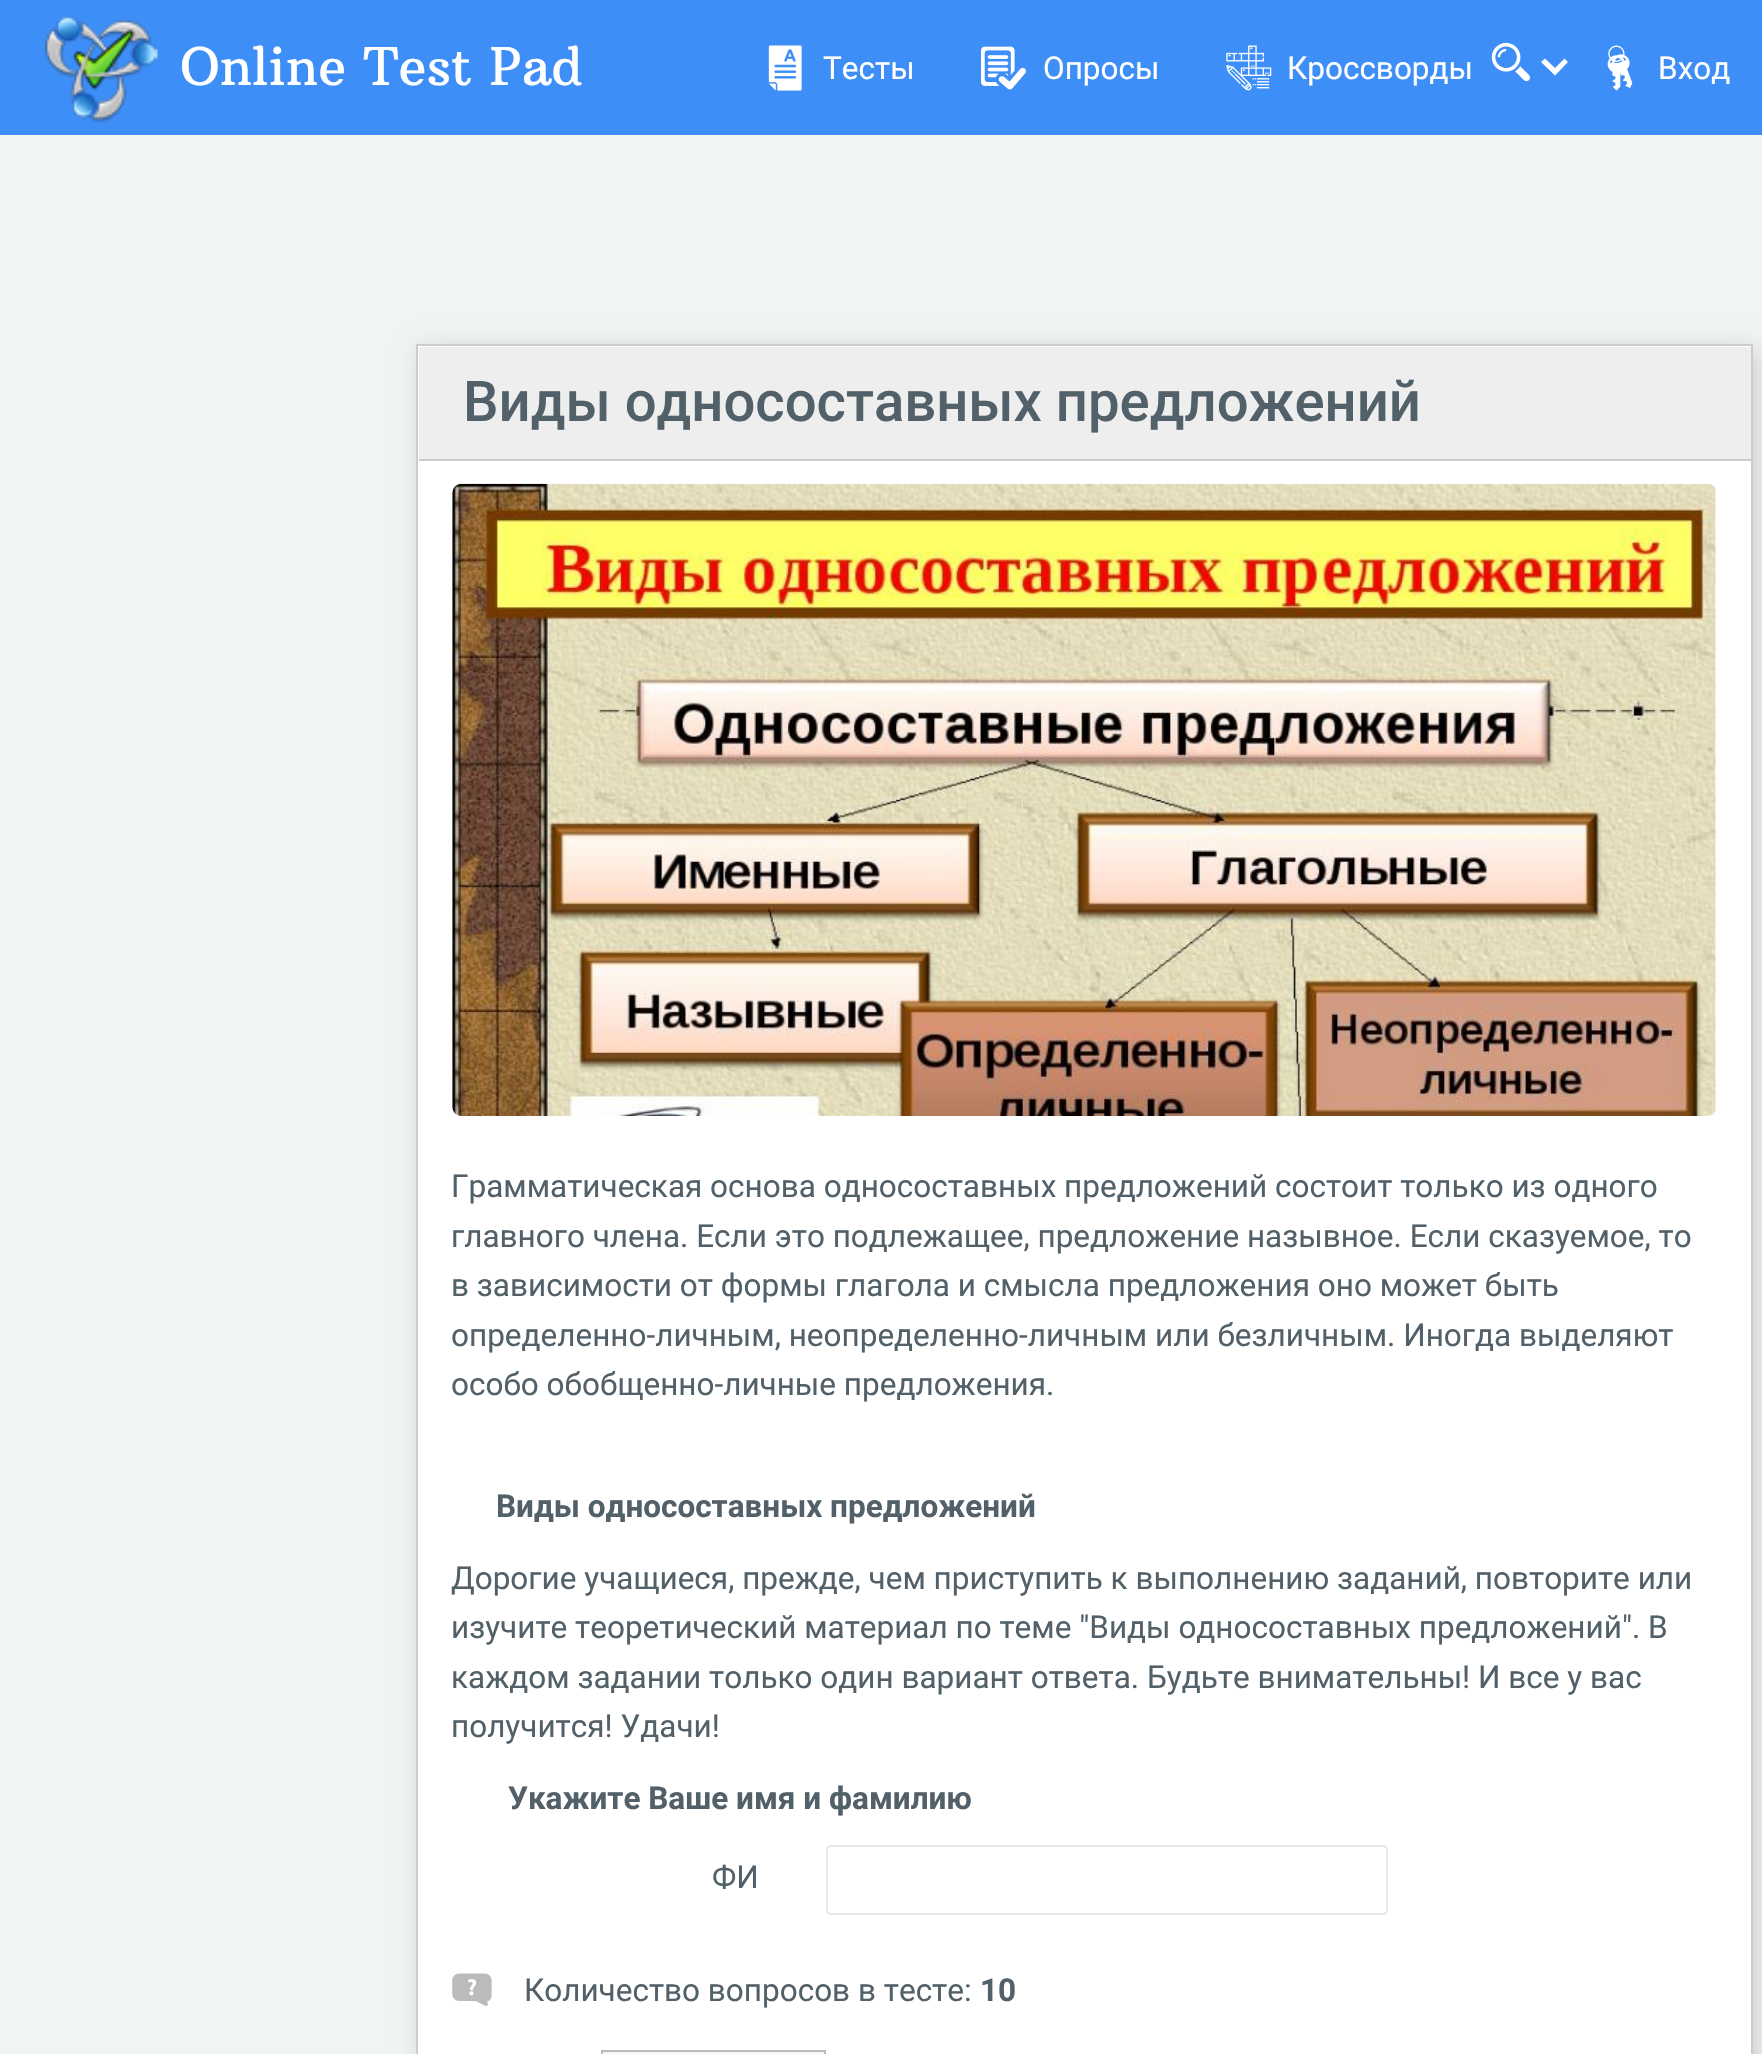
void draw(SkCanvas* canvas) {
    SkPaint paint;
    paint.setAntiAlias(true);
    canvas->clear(0xFF3E8EF7);
    canvas->drawImageRect(SkImages::DeferredFromEncodedData(SkData::MakeFromFileName("img1.png")), SkRect::MakeXYWH(45, 15, 113, 108), SkSamplingOptions());
    SkFont font1(fontMgr->matchFamilyStyle("Arbutus Slab", SkFontStyle::Normal()), 51.75f);
    font1.setSubpixel(true);
    paint.setColor(0xFFFFFFFF);
    canvas->drawString("Online Test Pad", 180, 85, font1, paint);
    canvas->drawImageRect(SkImages::DeferredFromEncodedData(SkData::MakeFromFileName("img2.png")), SkRect::MakeXYWH(768, 45, 34, 46), SkSamplingOptions());
    SkFont font2(fontMgr->matchFamilyStyle("Roboto", SkFontStyle::Normal()), 31.5f);
    font2.setSubpixel(true);
    canvas->drawString("Тесты", 823, 79, font2, paint);
    canvas->drawImageRect(SkImages::DeferredFromEncodedData(SkData::MakeFromFileName("img3.png")), SkRect::MakeXYWH(981, 46, 45, 44), SkSamplingOptions());
    canvas->drawString("Опросы", 1043, 79, font2, paint);
    canvas->drawImageRect(SkImages::DeferredFromEncodedData(SkData::MakeFromFileName("img4.png")), SkRect::MakeXYWH(1226, 45, 46, 46), SkSamplingOptions());
    canvas->drawString("Кроссворды", 1287, 79, font2, paint);
    canvas->drawPath(SkPathBuilder().moveTo(1568, 62).lineTo(1564.5f, 58.5f).lineTo(1555, 68).lineTo(1545, 58.5f).lineTo(1541, 62).lineTo(1555, 75.5f).close().detach(), paint);
    canvas->drawImageRect(SkImages::DeferredFromEncodedData(SkData::MakeFromFileName("img5.png")), SkRect::MakeXYWH(1491, 42, 39, 40), SkSamplingOptions());
    canvas->drawImageRect(SkImages::DeferredFromEncodedData(SkData::MakeFromFileName("img6.png")), SkRect::MakeXYWH(1607, 45, 26, 46), SkSamplingOptions());
    canvas->drawString("Вход", 1658, 79, font2, paint);
    paint.setColor(0xFFF1F4F5);
    canvas->drawRect(SkRect::MakeXYWH(0, 135, 1762, 1919), paint);
    paint.setColor(0xFFCCCCCC);
    paint.setMaskFilter(SkMaskFilter::MakeBlur(kNormal_SkBlurStyle, 11));
    canvas->drawRect(SkRect::MakeXYWH(421, 349, 1336, 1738), paint);
    paint.setMaskFilter(nullptr);
    paint.setColor(0xFFFFFFFF);
    canvas->drawRect(SkRect::MakeXYWH(417, 345, 1335, 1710), paint);
    paint.setStyle(SkPaint::kStroke_Style);
    paint.setStrokeWidth(2);
    paint.setColor(0xFFCCCCCC);
    canvas->drawRect(SkRect::MakeXYWH(417, 345, 1335, 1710), paint);
    paint.setStyle(SkPaint::kFill_Style);
    paint.setColor(0xFFEEEEEE);
    canvas->drawRect(SkRect::MakeXYWH(419, 347, 1332, 112), paint);
    paint.setColor(0xFFCCCCCC);
    canvas->drawRect(SkRect::MakeXYWH(419, 459, 1332, 2), paint);
    SkFont font3(fontMgr->matchFamilyStyle("Roboto", SkFontStyle(500, SkFontStyle::kNormal_Width, SkFontStyle::kUpright_Slant)), 56.25f);
    font3.setSubpixel(true);
    paint.setColor(0xFF526069);
    canvas->drawString("Виды односоставных предложений", 463, 421, font3, paint);
    canvas->drawImageRect(SkImages::DeferredFromEncodedData(SkData::MakeFromFileName("img7.png")), SkRect::MakeXYWH(452, 483, 1265, 633), SkSamplingOptions());
    canvas->drawString("Грамматическая основа односоставных предложений состоит только из одного", 451, 1197, font2, paint);
    canvas->drawString("главного члена. Если это подлежащее, предложение назывное. Если сказуемое, то", 451, 1247, font2, paint);
    canvas->drawString("в зависимости от формы глагола и смысла предложения оно может быть", 451, 1296, font2, paint);
    canvas->drawString("определенно-личным, неопределенно-личным или безличным. Иногда выделяют", 451, 1346, font2, paint);
    canvas->drawString("особо обобщенно-личные предложения.", 451, 1395, font2, paint);
    SkFont font4(fontMgr->matchFamilyStyle("Roboto", SkFontStyle::Bold()), 31.5f);
    font4.setSubpixel(true);
    canvas->drawString("Виды односоставных предложений", 496, 1517, font4, paint);
    canvas->drawString("Дорогие учащиеся, прежде, чем приступить к выполнению заданий, повторите или", 451, 1589, font2, paint);
    canvas->drawString("изучите теоретический материал по теме \"Виды односоставных предложений\". В", 451, 1638, font2, paint);
    canvas->drawString("каждом задании только один вариант ответа. Будьте внимательны! И все у вас", 451, 1688, font2, paint);
    canvas->drawString("получится! Удачи!", 451, 1737, font2, paint);
    canvas->drawString("Укажите Ваше имя и фамилию", 508, 1809, font4, paint);
    canvas->drawString("ФИ", 712, 1888, font2, paint);
    paint.setStyle(SkPaint::kStroke_Style);
    paint.setColor(0xFFE4EAEC);
    canvas->drawRoundRect(SkRect::MakeXYWH(827, 1846, 560, 68), 4, 4, paint);
    canvas->drawImageRect(SkImages::DeferredFromEncodedData(SkData::MakeFromFileName("img8.png")), SkRect::MakeXYWH(452, 1973, 40, 33), SkSamplingOptions());
    paint.setStyle(SkPaint::kFill_Style);
    paint.setColor(0xFF526069);
    canvas->drawString("Количество вопросов в тесте:", 524, 2001, font2, paint);
    canvas->drawString("10", 980, 2001, font4, paint);
    {
        const SkColor colors[] = {0xFFDDDDDD, 0xFFF7F7F7};
        const float stops[] = {0, 1};
        const SkPoint ends[] = {{713, 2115}, {713, 2052}};
        paint.setShader(SkGradientShader::MakeLinear(ends, colors, stops, 2, SkTileMode::kClamp));
        paint.setAlpha(255);
    }
    canvas->drawRect(SkRect::MakeXYWH(601, 2052, 225, 2), paint);
    paint.setStyle(SkPaint::kStroke_Style);
    paint.setShader(nullptr);
    paint.setColor(0xFFBBBBBB);
    canvas->drawRect(SkRect::MakeXYWH(602, 2051, 223, 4), paint);
}
